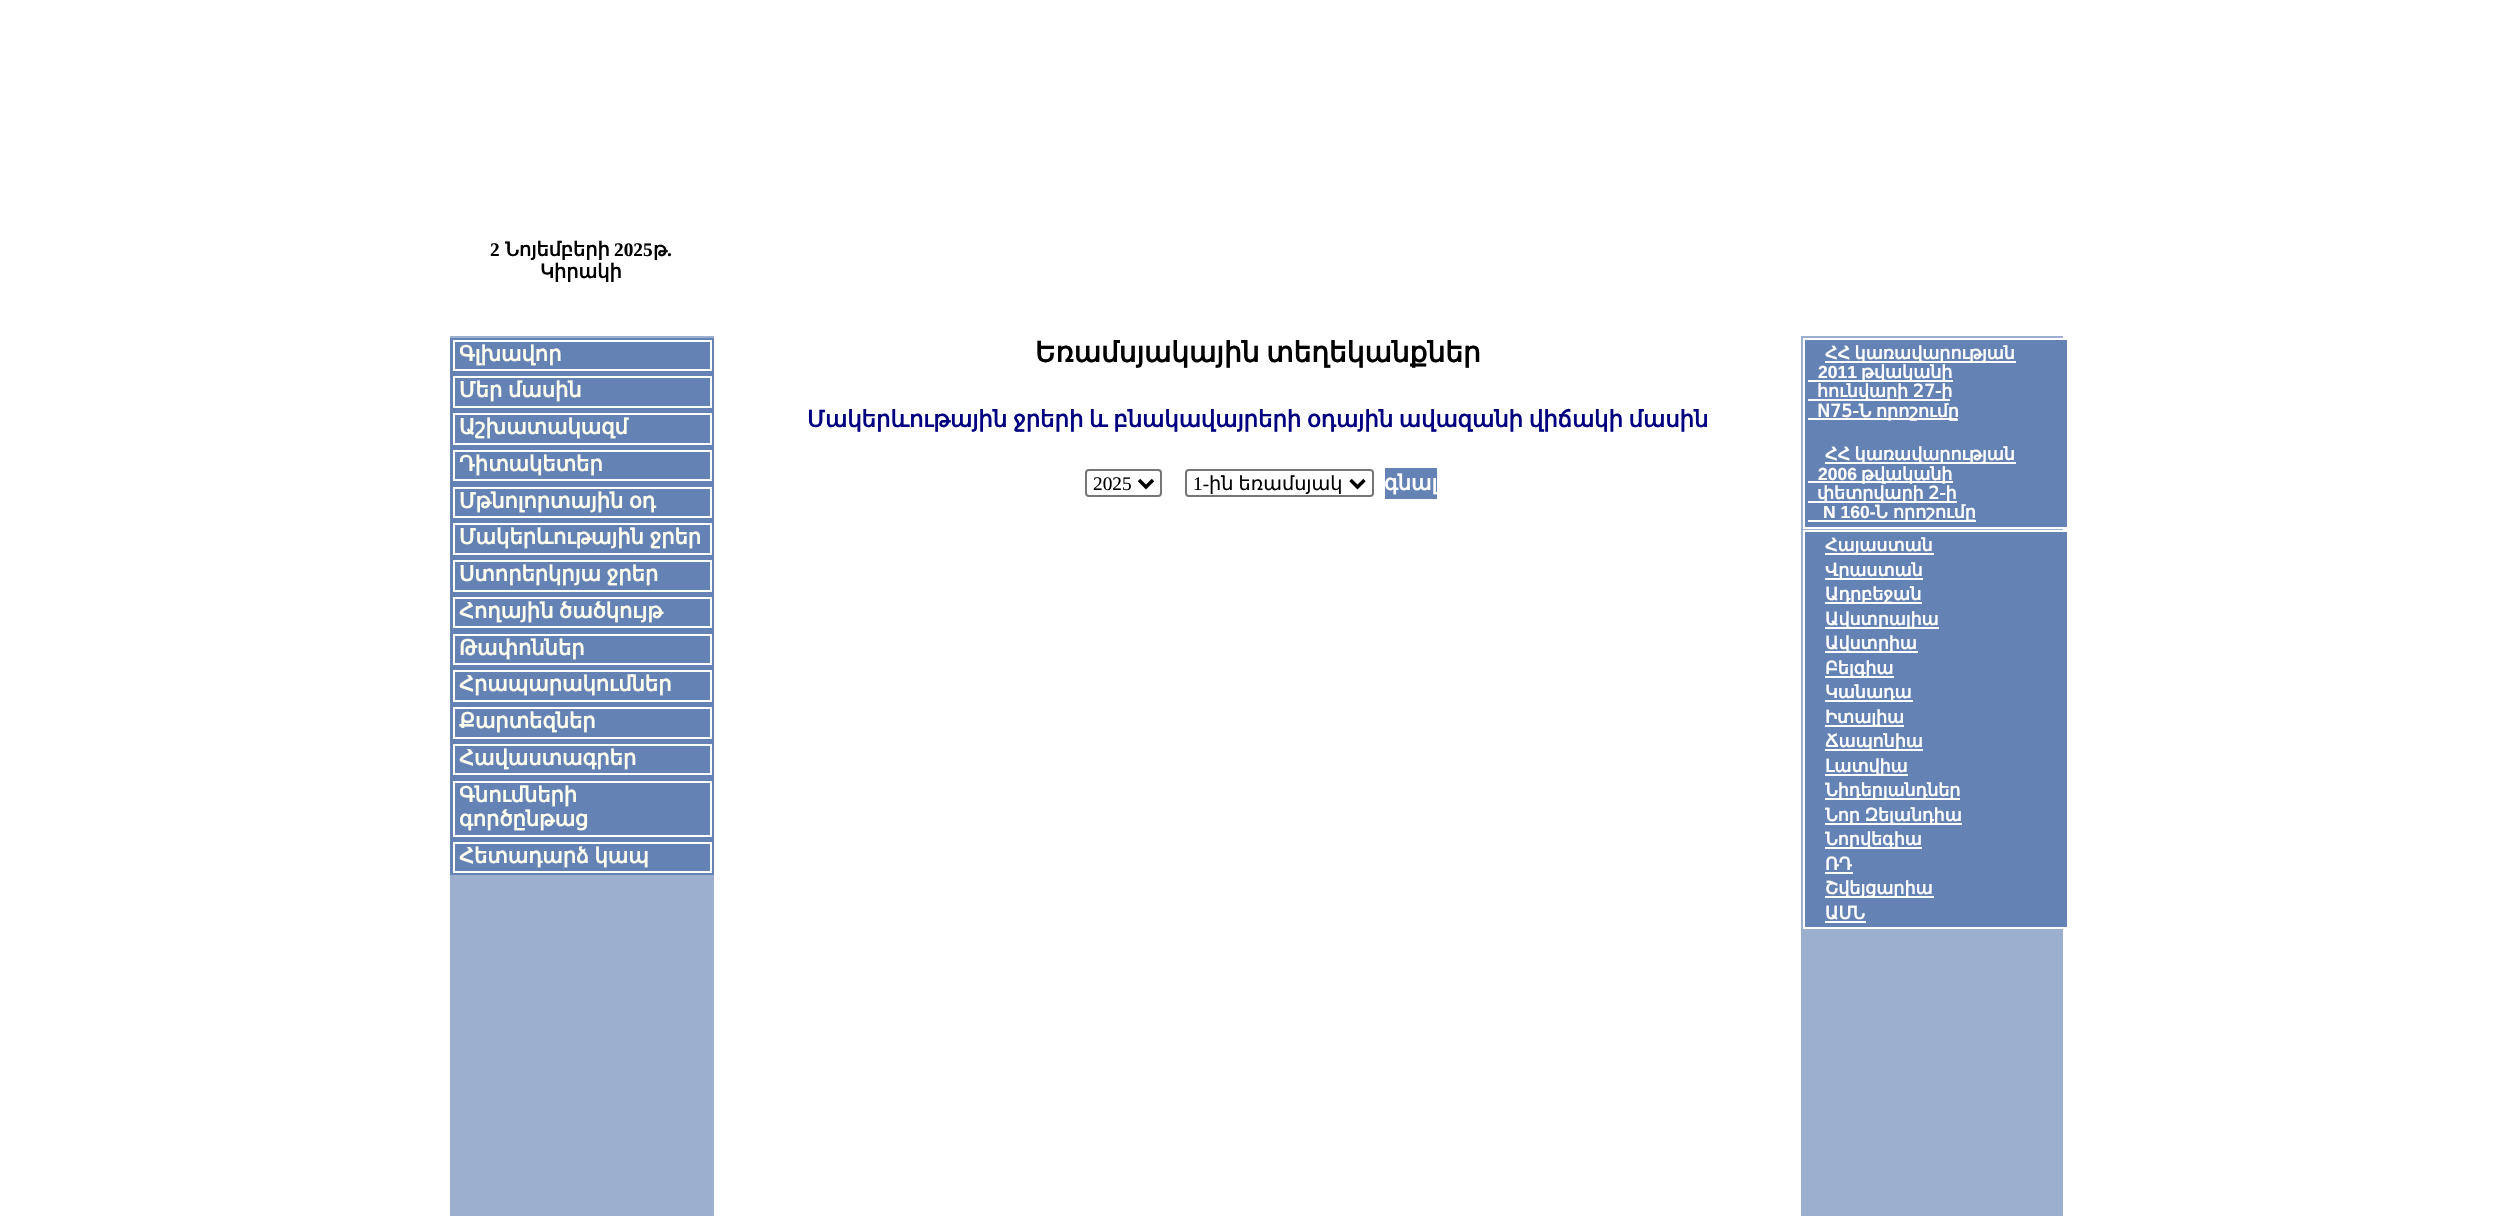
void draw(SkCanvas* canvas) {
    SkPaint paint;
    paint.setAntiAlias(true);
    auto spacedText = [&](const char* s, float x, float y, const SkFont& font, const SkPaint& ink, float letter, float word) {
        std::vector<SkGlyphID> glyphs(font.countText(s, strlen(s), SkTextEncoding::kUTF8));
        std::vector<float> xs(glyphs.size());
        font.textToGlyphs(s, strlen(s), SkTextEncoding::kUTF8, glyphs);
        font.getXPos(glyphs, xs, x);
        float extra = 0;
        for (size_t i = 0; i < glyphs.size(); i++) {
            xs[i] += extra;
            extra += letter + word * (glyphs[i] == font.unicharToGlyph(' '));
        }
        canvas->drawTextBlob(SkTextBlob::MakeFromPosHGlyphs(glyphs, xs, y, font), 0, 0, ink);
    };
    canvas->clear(0xFFFFFFFF);
    SkFont font1(fontMgr->matchFamilyStyle("Liberation Serif", SkFontStyle::Bold()), 19.25f);
    font1.setSubpixel(true);
    paint.setColor(0xFF000000);
    canvas->drawString("2", 490, 256, font1, paint);
    SkFont font2(fontMgr->matchFamilyStyle("DejaVu Sans", SkFontStyle::Bold()), 19.25f);
    font2.setSubpixel(true);
    canvas->drawString("Նոյեմբերի", 505, 256, font2, paint);
    canvas->drawString("2025", 614, 256, font1, paint);
    canvas->drawString("թ", 653, 256, font2, paint);
    canvas->drawString(".", 667, 256, font1, paint);
    canvas->drawString("Կիրակի", 540, 278, font2, paint);
    paint.setColor(0xFF9DAFCF);
    canvas->drawRect(SkRect::MakeXYWH(450, 336, 264, 880), paint);
    paint.setColor(0xFF6482B4);
    canvas->drawRect(SkRect::MakeXYWH(450, 338, 264, 537), paint);
    paint.setStyle(SkPaint::kStroke_Style);
    paint.setStrokeWidth(2);
    paint.setColor(0xFFFFFFFF);
    canvas->drawRect(SkRect::MakeXYWH(454, 341, 257, 29), paint);
    SkFont font3(fontMgr->matchFamilyStyle("DejaVu Sans", SkFontStyle::Bold()), 21);
    font3.setSubpixel(true);
    paint.setStyle(SkPaint::kFill_Style);
    paint.setColor(0xFFFFFFF0);
    canvas->drawString("Գլխավոր", 459, 361, font3, paint);
    paint.setStyle(SkPaint::kStroke_Style);
    paint.setColor(0xFFFFFFFF);
    canvas->drawRect(SkRect::MakeXYWH(454, 377, 257, 30), paint);
    paint.setStyle(SkPaint::kFill_Style);
    paint.setColor(0xFFFFFFF0);
    spacedText("Մեր մասին", 459, 397, font3, paint, 0, -1);
    paint.setStyle(SkPaint::kStroke_Style);
    paint.setColor(0xFFFFFFFF);
    canvas->drawRect(SkRect::MakeXYWH(454, 414, 257, 30), paint);
    paint.setStyle(SkPaint::kFill_Style);
    paint.setColor(0xFFFFFFF0);
    canvas->drawString("Աշխատակազմ", 459, 434, font3, paint);
    paint.setStyle(SkPaint::kStroke_Style);
    paint.setColor(0xFFFFFFFF);
    canvas->drawRect(SkRect::MakeXYWH(454, 451, 257, 29), paint);
    paint.setStyle(SkPaint::kFill_Style);
    paint.setColor(0xFFFFFFF0);
    canvas->drawString("Դիտակետեր", 459, 471, font3, paint);
    paint.setStyle(SkPaint::kStroke_Style);
    paint.setColor(0xFFFFFFFF);
    canvas->drawRect(SkRect::MakeXYWH(454, 488, 257, 29), paint);
    paint.setStyle(SkPaint::kFill_Style);
    paint.setColor(0xFFFFFFF0);
    spacedText("Մթնոլորտային օդ", 459, 508, font3, paint, 0, -1);
    paint.setStyle(SkPaint::kStroke_Style);
    paint.setColor(0xFFFFFFFF);
    canvas->drawRect(SkRect::MakeXYWH(454, 524, 257, 30), paint);
    paint.setStyle(SkPaint::kFill_Style);
    paint.setColor(0xFFFFFFF0);
    spacedText("Մակերևութային ջրեր", 459, 544, font3, paint, 0, -1);
    paint.setStyle(SkPaint::kStroke_Style);
    paint.setColor(0xFFFFFFFF);
    canvas->drawRect(SkRect::MakeXYWH(454, 561, 257, 30), paint);
    paint.setStyle(SkPaint::kFill_Style);
    paint.setColor(0xFFFFFFF0);
    spacedText("Ստորերկրյա ջրեր", 459, 581, font3, paint, 0, -1);
    paint.setStyle(SkPaint::kStroke_Style);
    paint.setColor(0xFFFFFFFF);
    canvas->drawRect(SkRect::MakeXYWH(454, 598, 257, 29), paint);
    paint.setStyle(SkPaint::kFill_Style);
    paint.setColor(0xFFFFFFF0);
    spacedText("Հողային ծածկույթ", 459, 618, font3, paint, 0, -1);
    paint.setStyle(SkPaint::kStroke_Style);
    paint.setColor(0xFFFFFFFF);
    canvas->drawRect(SkRect::MakeXYWH(454, 635, 257, 29), paint);
    paint.setStyle(SkPaint::kFill_Style);
    paint.setColor(0xFFFFFFF0);
    canvas->drawString("Թափոններ", 459, 655, font3, paint);
    paint.setStyle(SkPaint::kStroke_Style);
    paint.setColor(0xFFFFFFFF);
    canvas->drawRect(SkRect::MakeXYWH(454, 671, 257, 30), paint);
    paint.setStyle(SkPaint::kFill_Style);
    paint.setColor(0xFFFFFFF0);
    canvas->drawString("Հրապարակումներ", 459, 691, font3, paint);
    paint.setStyle(SkPaint::kStroke_Style);
    paint.setColor(0xFFFFFFFF);
    canvas->drawRect(SkRect::MakeXYWH(454, 708, 257, 30), paint);
    paint.setStyle(SkPaint::kFill_Style);
    paint.setColor(0xFFFFFFF0);
    canvas->drawString("Քարտեզներ", 459, 728, font3, paint);
    paint.setStyle(SkPaint::kStroke_Style);
    paint.setColor(0xFFFFFFFF);
    canvas->drawRect(SkRect::MakeXYWH(454, 745, 257, 29), paint);
    paint.setStyle(SkPaint::kFill_Style);
    paint.setColor(0xFFFFFFF0);
    canvas->drawString("Հավաստագրեր", 459, 765, font3, paint);
    paint.setStyle(SkPaint::kStroke_Style);
    paint.setColor(0xFFFFFFFF);
    canvas->drawRect(SkRect::MakeXYWH(454, 782, 257, 54), paint);
    paint.setStyle(SkPaint::kFill_Style);
    paint.setColor(0xFFFFFFF0);
    canvas->drawString("Գնումների", 459, 802, font3, paint);
    canvas->drawString("գործընթաց", 459, 826, font3, paint);
    paint.setStyle(SkPaint::kStroke_Style);
    paint.setColor(0xFFFFFFFF);
    canvas->drawRect(SkRect::MakeXYWH(454, 843, 257, 29), paint);
    paint.setStyle(SkPaint::kFill_Style);
    paint.setColor(0xFFFFFFF0);
    spacedText("Հետադարձ կապ", 459, 863, font3, paint, 0, -1);
    SkFont font4(fontMgr->matchFamilyStyle("DejaVu Sans", SkFontStyle::Bold()), 28);
    font4.setSubpixel(true);
    paint.setColor(0xFF000000);
    spacedText("Եռամսյակային տեղեկանքներ", 1035, 362, font4, paint, 0, -2);
    SkFont font5(fontMgr->matchFamilyStyle("DejaVu Sans", SkFontStyle::Bold()), 22.75f);
    font5.setSubpixel(true);
    paint.setColor(0xFF000080);
    spacedText("Մակերևութային ջրերի և բնակավայրերի օդային ավազանի վիճակի մասին", 807, 427, font5, paint, 0, -1.5f);
    paint.setStyle(SkPaint::kStroke_Style);
    paint.setColor(0xFF767676);
    canvas->drawRoundRect(SkRect::MakeXYWH(1086, 470, 75, 26), 3, 3, paint);
    paint.setStrokeWidth(3.5f);
    paint.setColor(0xFF000000);
    canvas->drawPath(SkPathBuilder().moveTo(1139, 480).lineTo(1146, 487).lineTo(1153, 480).detach(), paint);
    SkFont font6(fontMgr->matchFamilyStyle("Liberation Serif", SkFontStyle::Normal()), 19.25f);
    font6.setSubpixel(true);
    paint.setStyle(SkPaint::kFill_Style);
    canvas->drawString("2025", 1093, 490, font6, paint);
    paint.setStyle(SkPaint::kStroke_Style);
    paint.setStrokeWidth(2);
    paint.setColor(0xFF767676);
    canvas->drawRoundRect(SkRect::MakeXYWH(1186, 470, 187, 26), 3, 3, paint);
    paint.setStrokeWidth(3.5f);
    paint.setColor(0xFF000000);
    canvas->drawPath(SkPathBuilder().moveTo(1350.5f, 480).lineTo(1357.5f, 487).lineTo(1364.5f, 480).detach(), paint);
    paint.setStyle(SkPaint::kFill_Style);
    canvas->drawString("1-", 1193, 490, font6, paint);
    SkFont font7(fontMgr->matchFamilyStyle("DejaVu Sans", SkFontStyle::Normal()), 19.25f);
    font7.setSubpixel(true);
    spacedText("ին եռամսյակ", 1209, 490, font7, paint, 0, -1);
    paint.setColor(0xFF6482B4);
    canvas->drawRect(SkRect::MakeXYWH(1385, 468, 52, 31), paint);
    canvas->save();
    canvas->clipRect(SkRect::MakeXYWH(1384, 467, 53, 32));
    paint.setColor(0xFFFFFFFF);
    canvas->drawString("գնալ", 1384, 490, font3, paint);
    canvas->restore();
    paint.setColor(0xFF9DAFCF);
    canvas->drawRect(SkRect::MakeXYWH(1801, 336, 262, 880), paint);
    paint.setColor(0xFF6482B4);
    canvas->drawRect(SkRect::MakeXYWH(1804, 339, 264, 189), paint);
    paint.setStyle(SkPaint::kStroke_Style);
    paint.setStrokeWidth(2);
    paint.setColor(0xFFFFFFFF);
    canvas->drawRect(SkRect::MakeXYWH(1804, 339, 264, 189), paint);
    paint.setStyle(SkPaint::kFill_Style);
    canvas->drawRect(SkRect::MakeXYWH(1825, 361, 191, 2), paint);
    SkFont font8(fontMgr->matchFamilyStyle("DejaVu Sans", SkFontStyle::Bold()), 17.5f);
    font8.setSubpixel(true);
    spacedText("ՀՀ կառավարության", 1825, 359, font8, paint, 0, -1);
    SkFont font9(fontMgr->matchFamilyStyle("Liberation Sans", SkFontStyle::Bold()), 17.5f);
    font9.setSubpixel(true);
    canvas->drawString("2011", 1818, 378, font9, paint);
    canvas->drawRect(SkRect::MakeXYWH(1808, 380, 145, 2), paint);
    canvas->drawString("թվականի", 1861, 378, font8, paint);
    canvas->drawRect(SkRect::MakeXYWH(1808, 399, 142, 2), paint);
    spacedText("հունվարի 27-ի", 1817, 397, font8, paint, 0, -1);
    canvas->drawRect(SkRect::MakeXYWH(1808, 418, 149, 2), paint);
    spacedText("N75-Ն որոշումը", 1817, 417, font8, paint, 0, -1);
    canvas->drawRect(SkRect::MakeXYWH(1825, 462, 191, 2), paint);
    spacedText("ՀՀ կառավարության", 1825, 460, font8, paint, 0, -1);
    canvas->drawString("2006", 1818, 480, font9, paint);
    canvas->drawRect(SkRect::MakeXYWH(1808, 481, 145, 2), paint);
    canvas->drawString("թվականի", 1861, 480, font8, paint);
    canvas->drawRect(SkRect::MakeXYWH(1808, 501, 149, 2), paint);
    spacedText("փետրվարի 2-ի", 1817, 499, font8, paint, 0, -1);
    canvas->drawString("N 160-", 1823, 518, font9, paint);
    canvas->drawString("Ն", 1875, 518, font8, paint);
    canvas->drawRect(SkRect::MakeXYWH(1808, 520, 168, 2), paint);
    canvas->drawString("որոշումը", 1893, 518, font8, paint);
    paint.setColor(0xFF6482B4);
    canvas->drawRect(SkRect::MakeXYWH(1804, 531, 264, 397), paint);
    paint.setStyle(SkPaint::kStroke_Style);
    paint.setColor(0xFFFFFFFF);
    canvas->drawRect(SkRect::MakeXYWH(1804, 531, 264, 397), paint);
    paint.setStyle(SkPaint::kFill_Style);
    canvas->drawRect(SkRect::MakeXYWH(1825, 553, 109, 2), paint);
    canvas->drawString("Հայաստան", 1825, 551, font8, paint);
    canvas->drawRect(SkRect::MakeXYWH(1825, 578, 98, 2), paint);
    canvas->drawString("Վրաստան", 1825, 576, font8, paint);
    canvas->drawRect(SkRect::MakeXYWH(1825, 602, 97, 2), paint);
    canvas->drawString("Ադրբեջան", 1825, 600, font8, paint);
    canvas->drawRect(SkRect::MakeXYWH(1825, 627, 114, 2), paint);
    canvas->drawString("Ավստրալիա", 1825, 625, font8, paint);
    canvas->drawRect(SkRect::MakeXYWH(1825, 651, 93, 2), paint);
    canvas->drawString("Ավստրիա", 1825, 649, font8, paint);
    canvas->drawRect(SkRect::MakeXYWH(1825, 676, 69, 2), paint);
    canvas->drawString("Բելգիա", 1825, 674, font8, paint);
    canvas->drawRect(SkRect::MakeXYWH(1825, 700, 88, 2), paint);
    canvas->drawString("Կանադա", 1825, 698, font8, paint);
    canvas->drawRect(SkRect::MakeXYWH(1825, 725, 79, 2), paint);
    canvas->drawString("Իտալիա", 1825, 723, font8, paint);
    canvas->drawRect(SkRect::MakeXYWH(1825, 749, 98, 2), paint);
    canvas->drawString("Ճապոնիա", 1825, 747, font8, paint);
    canvas->drawRect(SkRect::MakeXYWH(1825, 774, 83, 2), paint);
    canvas->drawString("Լատվիա", 1825, 772, font8, paint);
    canvas->drawRect(SkRect::MakeXYWH(1825, 798, 135, 2), paint);
    canvas->drawString("Նիդերլանդներ", 1825, 796, font8, paint);
    canvas->drawRect(SkRect::MakeXYWH(1825, 823, 137, 2), paint);
    spacedText("Նոր Զելանդիա", 1825, 821, font8, paint, 0, -1);
    canvas->drawRect(SkRect::MakeXYWH(1825, 847, 97, 2), paint);
    canvas->drawString("Նորվեգիա", 1825, 845, font8, paint);
    canvas->drawString("ՌԴ", 1825, 870, font8, paint);
    canvas->drawRect(SkRect::MakeXYWH(1825, 872, 28, 2), paint);
    canvas->drawRect(SkRect::MakeXYWH(1825, 896, 109, 2), paint);
    canvas->drawString("Շվեյցարիա", 1825, 894, font8, paint);
    canvas->drawString("ԱՄՆ", 1825, 919, font8, paint);
    canvas->drawRect(SkRect::MakeXYWH(1825, 921, 41, 2), paint);
}
